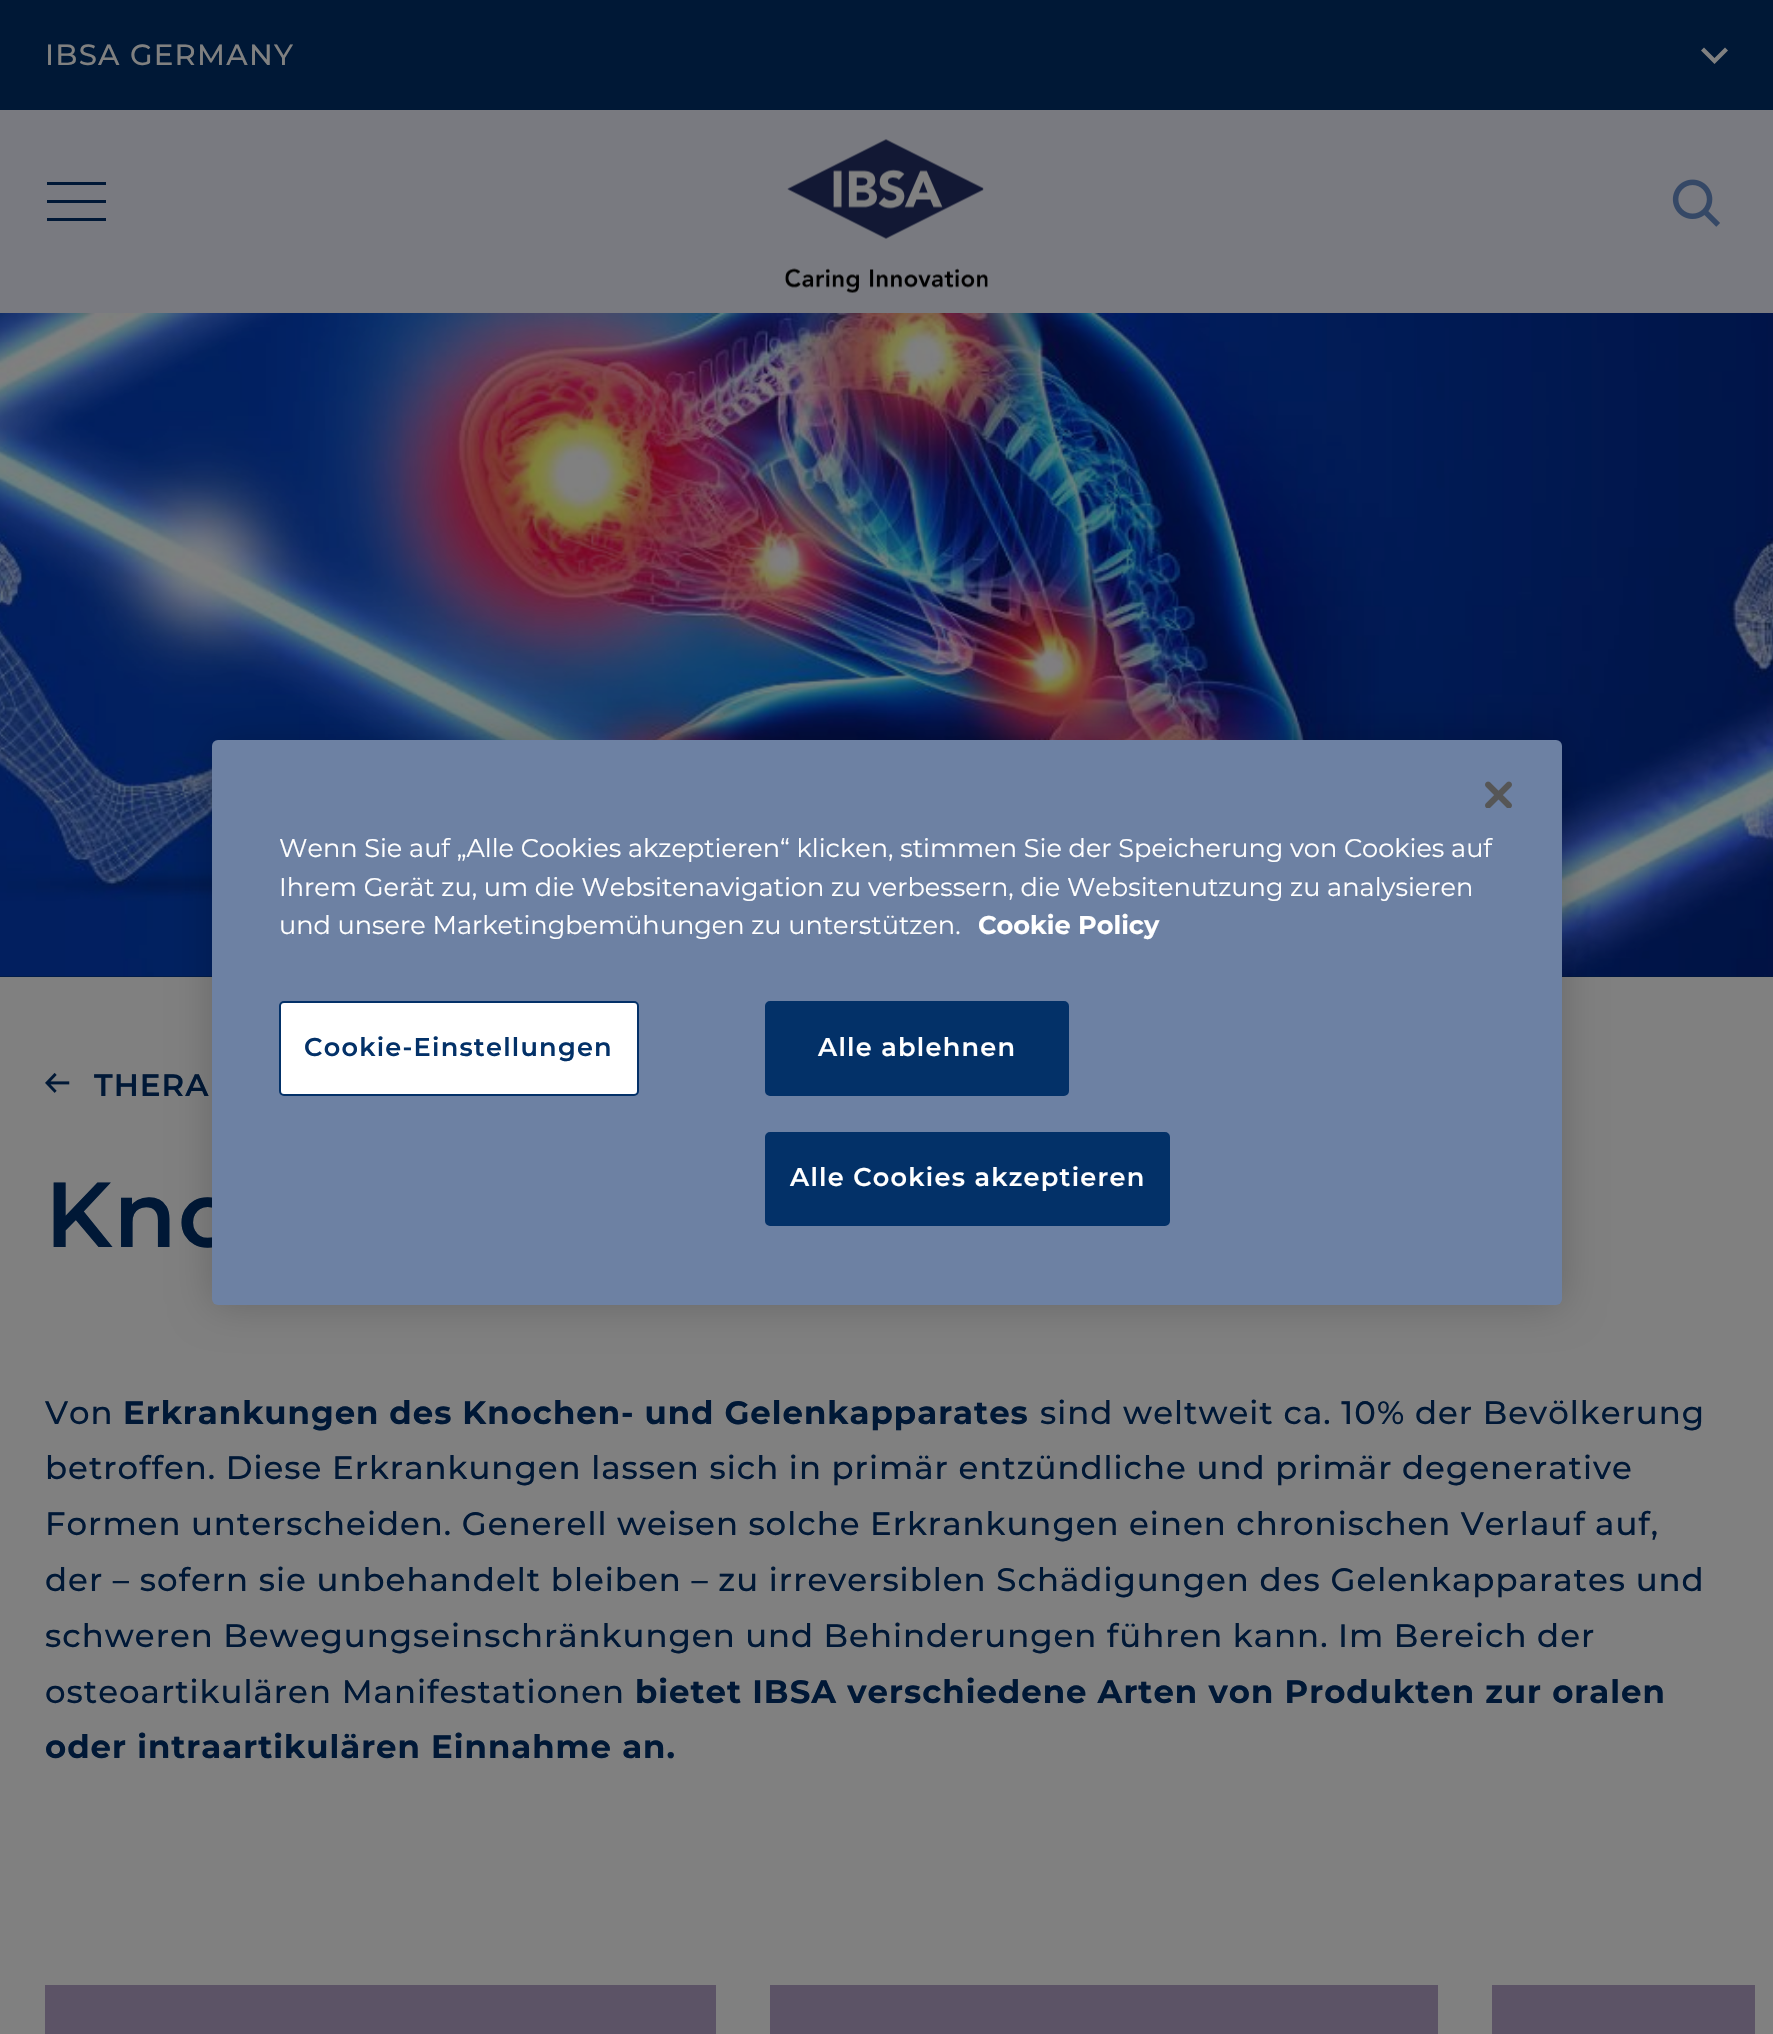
void draw(SkCanvas* canvas) {
    SkPaint paint;
    paint.setAntiAlias(true);
    auto spacedText = [&](const char* s, float x, float y, const SkFont& font, const SkPaint& ink, float letter, float word) {
        std::vector<SkGlyphID> glyphs(font.countText(s, strlen(s), SkTextEncoding::kUTF8));
        std::vector<float> xs(glyphs.size());
        font.textToGlyphs(s, strlen(s), SkTextEncoding::kUTF8, glyphs);
        font.getXPos(glyphs, xs, x);
        float extra = 0;
        for (size_t i = 0; i < glyphs.size(); i++) {
            xs[i] += extra;
            extra += letter + word * (glyphs[i] == font.unicharToGlyph(' '));
        }
        canvas->drawTextBlob(SkTextBlob::MakeFromPosHGlyphs(glyphs, xs, y, font), 0, 0, ink);
    };
    canvas->clear(0xFF808080);
    paint.setColor(0xFF797A80);
    canvas->drawRect(SkRect::MakeXYWH(0, 110, 1773, 203), paint);
    paint.setColor(0xFF001836);
    canvas->drawRect(SkRect::MakeXYWH(0, 0, 1773, 110), paint);
    SkFont font1(fontMgr->matchFamilyStyle("Montserrat", SkFontStyle(500, SkFontStyle::kNormal_Width, SkFontStyle::kUpright_Slant)), 29.25f);
    font1.setSubpixel(true);
    paint.setColor(0xFF808080);
    spacedText("IBSA GERMANY", 45, 65, font1, paint, 1.25f, 0);
    canvas->drawPath(SkPathBuilder().moveTo(1714.5f, 64).lineTo(1701, 50.5f).lineTo(1704, 47.5f).lineTo(1714.5f, 58).lineTo(1725, 47.5f).lineTo(1728, 50.5f).close().detach(), paint);
    paint.setColor(0xFF001836);
    canvas->drawPath(SkPathBuilder().moveTo(47, 221).lineTo(106, 221).lineTo(106, 218).lineTo(47, 218).close().moveTo(47, 203).lineTo(106, 203).lineTo(106, 200).lineTo(47, 200).close().moveTo(47, 185).lineTo(106, 185).lineTo(106, 182).lineTo(47, 182).close().detach(), paint);
    canvas->drawImageRect(SkImages::DeferredFromEncodedData(SkData::MakeFromFileName("img1.png")), SkRect::MakeXYWH(785, 139, 203, 154), SkSamplingOptions());
    canvas->drawImageRect(SkImages::DeferredFromEncodedData(SkData::MakeFromFileName("img2.png")), SkRect::MakeXYWH(1672, 179, 48, 48), SkSamplingOptions());
    canvas->drawRect(SkRect::MakeXYWH(0, 976, 1773, 1), paint);
    canvas->drawImageRect(SkImages::DeferredFromEncodedData(SkData::MakeFromFileName("img3.png")), SkRect::MakeXYWH(0, 313, 1773, 664), SkSamplingOptions());
    canvas->drawImageRect(SkImages::DeferredFromEncodedData(SkData::MakeFromFileName("img4.png")), SkRect::MakeXYWH(45, 1073, 25, 20), SkSamplingOptions());
    SkFont font2(fontMgr->matchFamilyStyle("Montserrat", SkFontStyle(600, SkFontStyle::kNormal_Width, SkFontStyle::kUpright_Slant)), 31);
    font2.setSubpixel(true);
    spacedText("THERA", 94, 1096, font2, paint, 1, 0);
    SkFont font3(fontMgr->matchFamilyStyle("Montserrat", SkFontStyle(600, SkFontStyle::kNormal_Width, SkFontStyle::kUpright_Slant)), 92);
    font3.setSubpixel(true);
    spacedText("Kno", 45, 1247, font3, paint, 1.5f, 0);
    SkFont font4(fontMgr->matchFamilyStyle("Montserrat", SkFontStyle(500, SkFontStyle::kNormal_Width, SkFontStyle::kUpright_Slant)), 32.37f);
    font4.setSubpixel(true);
    spacedText("Von", 45, 1424, font4, paint, 1, 0);
    SkFont font5(fontMgr->matchFamilyStyle("Montserrat", SkFontStyle::Bold()), 32.37f);
    font5.setSubpixel(true);
    spacedText("Erkrankungen des Knochen- und Gelenkapparates", 123, 1424, font5, paint, 1, -0.25f);
    spacedText("sind weltweit ca. 10% der Bevölkerung", 1040, 1424, font4, paint, 1, 0);
    spacedText("betroffen. Diese Erkrankungen lassen sich in primär entzündliche und primär degenerative", 45, 1479, font4, paint, 1, -0.1f);
    spacedText("Formen unterscheiden. Generell weisen solche Erkrankungen einen chronischen Verlauf auf,", 45, 1535, font4, paint, 1, -0.25f);
    spacedText("der – sofern sie unbehandelt bleiben – zu irreversiblen Schädigungen des Gelenkapparates und", 45, 1591, font4, paint, 1, 0);
    spacedText("schweren Bewegungseinschränkungen und Behinderungen führen kann. Im Bereich der", 45, 1647, font4, paint, 1, -0.25f);
    spacedText("osteoartikulären Manifestationen", 45, 1703, font4, paint, 1, 0);
    spacedText("bietet IBSA verschiedene Arten von Produkten zur oralen", 635, 1703, font5, paint, 1, 0);
    spacedText("oder intraartikulären Einnahme an.", 45, 1758, font5, paint, 1, 0);
    paint.setColor(0xFF5C5366);
    canvas->drawRect(SkRect::MakeXYWH(45, 1985, 671, 49), paint);
    canvas->drawRect(SkRect::MakeXYWH(770, 1985, 668, 49), paint);
    canvas->drawRect(SkRect::MakeXYWH(1492, 1985, 263, 49), paint);
    paint.setColor(0x33000000);
    paint.setMaskFilter(SkMaskFilter::MakeBlur(kNormal_SkBlurStyle, 20));
    canvas->drawRoundRect(SkRect::MakeXYWH(212, 740, 1350, 565), 6, 6, paint);
    paint.setMaskFilter(nullptr);
    paint.setColor(0xFF6D81A3);
    canvas->drawRoundRect(SkRect::MakeXYWH(212, 740, 1350, 565), 6, 6, paint);
    canvas->drawImageRect(SkImages::DeferredFromEncodedData(SkData::MakeFromFileName("img5.png")), SkRect::MakeXYWH(1485, 781, 27, 27), SkSamplingOptions());
    SkFont font6(fontMgr->matchFamilyStyle("Montserrat", SkFontStyle::Normal()), 25.6f);
    font6.setSubpixel(true);
    paint.setColor(0xFFFFFFFF);
    canvas->drawString("Wenn Sie auf „Alle Cookies akzeptieren“ klicken, stimmen Sie der Speicherung von Cookies auf", 279, 857, font6, paint);
    canvas->drawString("Ihrem Gerät zu, um die Websitenavigation zu verbessern, die Websitenutzung zu analysieren", 279, 896, font6, paint);
    canvas->drawString("und unsere Marketingbemühungen zu unterstützen.", 279, 934, font6, paint);
    SkFont font7(fontMgr->matchFamilyStyle("Montserrat", SkFontStyle::Bold()), 25.6f);
    font7.setSubpixel(true);
    canvas->drawString("Cookie Policy", 978, 934, font7, paint);
    canvas->drawRoundRect(SkRect::MakeXYWH(280, 1002, 358, 93), 4, 4, paint);
    paint.setStyle(SkPaint::kStroke_Style);
    paint.setStrokeWidth(2);
    paint.setColor(0xFF033168);
    canvas->drawRoundRect(SkRect::MakeXYWH(280, 1002, 358, 93), 4, 4, paint);
    SkFont font8(fontMgr->matchFamilyStyle("Montserrat", SkFontStyle(600, SkFontStyle::kNormal_Width, SkFontStyle::kUpright_Slant)), 25.6f);
    font8.setSubpixel(true);
    paint.setStyle(SkPaint::kFill_Style);
    spacedText("Cookie-Einstellungen", 304, 1056, font8, paint, 1.25f, 0);
    canvas->drawRoundRect(SkRect::MakeXYWH(766, 1002, 302, 93), 4, 4, paint);
    paint.setStyle(SkPaint::kStroke_Style);
    canvas->drawRoundRect(SkRect::MakeXYWH(766, 1002, 302, 93), 4, 4, paint);
    paint.setStyle(SkPaint::kFill_Style);
    paint.setColor(0xFFFFFFFF);
    spacedText("Alle ablehnen", 818, 1056, font8, paint, 1.25f, 0);
    paint.setColor(0xFF033168);
    canvas->drawRoundRect(SkRect::MakeXYWH(766, 1133, 403, 92), 4, 4, paint);
    paint.setStyle(SkPaint::kStroke_Style);
    canvas->drawRoundRect(SkRect::MakeXYWH(766, 1133, 403, 92), 4, 4, paint);
    paint.setStyle(SkPaint::kFill_Style);
    paint.setColor(0xFFFFFFFF);
    spacedText("Alle Cookies akzeptieren", 790, 1186, font8, paint, 1.25f, 0);
}
